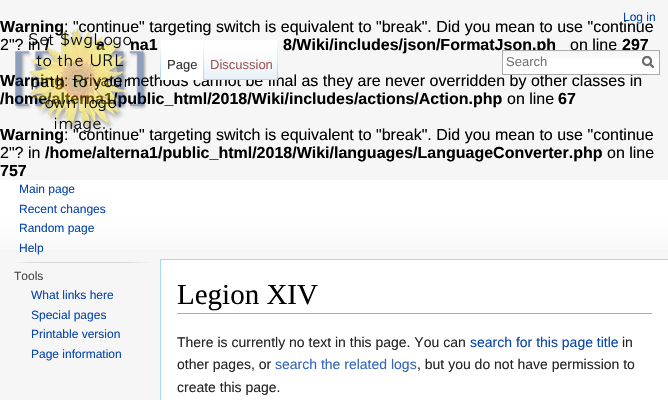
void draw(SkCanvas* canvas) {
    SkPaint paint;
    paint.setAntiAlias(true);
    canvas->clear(0xFFF6F6F6);
    SkFont font1(fontMgr->matchFamilyStyle("Liberation Sans", SkFontStyle::Normal()), 12);
    font1.setSubpixel(true);
    paint.setColor(0xFF0645AD);
    canvas->drawString("Log in", 623, 21, font1, paint);
    SkFont font2(fontMgr->matchFamilyStyle("Liberation Sans", SkFontStyle::Normal()), 16);
    font2.setSubpixel(true);
    paint.setColor(0xFF000000);
    canvas->drawString(": Private methods cannot be final as they are never overridden by other classes in", 64, 86, font2, paint);
    canvas->drawImageRect(SkImages::DeferredFromEncodedData(SkData::MakeFromFileName("img1.png")), SkRect::MakeXYWH(160, 40, 1, 40), SkSamplingOptions());
    paint.setColor(0xFFFFFFFF);
    canvas->drawRect(SkRect::MakeXYWH(161, 40, 42, 40), paint);
    canvas->drawImageRect(SkImages::DeferredFromEncodedData(SkData::MakeFromFileName("img2.png")), SkRect::MakeXYWH(203, 40, 1, 40), SkSamplingOptions());
    SkFont font3(fontMgr->matchFamilyStyle("Liberation Sans", SkFontStyle::Normal()), 13);
    font3.setSubpixel(true);
    paint.setColor(0xFF333333);
    canvas->drawString("Page", 167, 69, font3, paint);
    canvas->drawImageRect(SkImages::DeferredFromEncodedData(SkData::MakeFromFileName("img3.png")), SkRect::MakeXYWH(204, 40, 74, 40), SkSamplingOptions());
    canvas->drawImageRect(SkImages::DeferredFromEncodedData(SkData::MakeFromFileName("img4.png")), SkRect::MakeXYWH(277, 40, 1, 39), SkSamplingOptions());
    paint.setColor(0xFFA55858);
    canvas->drawString("Discussion", 210, 69, font3, paint);
    paint.setColor(0xFFFFFFFF);
    canvas->drawRect(SkRect::MakeXYWH(503, 59, 156, 15), paint);
    SkFont font4(fontMgr->matchFamilyStyle("Liberation Sans", SkFontStyle::Bold()), 16);
    font4.setSubpixel(true);
    paint.setColor(0xFF000000);
    canvas->drawString("8/Wiki/includes/json/FormatJson.ph", 283, 50, font4, paint);
    canvas->drawImageRect(SkImages::DeferredFromEncodedData(SkData::MakeFromFileName("img5.png")), SkRect::MakeXYWH(503, 51, 156, 8), SkSamplingOptions());
    canvas->drawString("on line", 570, 50, font2, paint);
    canvas->drawString("297", 622, 50, font4, paint);
    paint.setStyle(SkPaint::kStroke_Style);
    paint.setStrokeWidth(1);
    paint.setColor(0xFFAAAAAA);
    canvas->drawRect(SkRect::MakeXYWH(502.5f, 50.5f, 157, 24), paint);
    paint.setStyle(SkPaint::kFill_Style);
    paint.setColor(0xFF757575);
    canvas->drawString("Search", 506, 66, font3, paint);
    paint.setStyle(SkPaint::kStroke_Style);
    paint.setStrokeWidth(2);
    paint.setColor(0xFF6C6C6C);
    canvas->drawPath(SkPathBuilder().moveTo(653.5f, 67.5f).lineTo(649.5f, 63.5f).detach(), paint);
    canvas->drawCircle(647, 61, 4, paint);
    canvas->drawPath(SkPathBuilder().moveTo(653.5f, 67.5f).lineTo(649.5f, 63.5f).detach(), paint);
    canvas->drawCircle(647, 61, 4, paint);
    paint.setStyle(SkPaint::kFill_Style);
    paint.setColor(0xFF000000);
    canvas->drawString("Warning", 0, 32, font4, paint);
    canvas->drawString(": \"continue\" targeting switch is equivalent to \"break\". Did you mean to use \"continue", 64, 32, font2, paint);
    canvas->drawString("2\"? in", 0, 50, font2, paint);
    canvas->drawString("/", 45, 50, font4, paint);
    canvas->drawString("a", 96, 50, font4, paint);
    canvas->drawString("na1", 130, 50, font4, paint);
    canvas->drawString("Warning", 0, 86, font4, paint);
    canvas->drawString("/home/alterna1/public_html/2018/Wiki/includes/actions/Action.php", 0, 104, font4, paint);
    canvas->drawString("Warning", 0, 140, font4, paint);
    canvas->drawString(": \"continue\" targeting switch is equivalent to \"break\". Did you mean to use \"continue", 64, 140, font2, paint);
    canvas->drawImageRect(SkImages::DeferredFromEncodedData(SkData::MakeFromFileName("img6.png")), SkRect::MakeXYWH(15, 28, 132, 105), SkSamplingOptions());
    {
        const SkColor colors[] = {0xFFFFFFFF, 0xFFF6F6F6};
        const float stops[] = {0.5f, 1};
        const SkPoint ends[] = {{334, 180}, {334, 260}};
        paint.setShader(SkGradientShader::MakeLinear(ends, colors, stops, 2, SkTileMode::kClamp));
        paint.setAlpha(255);
    }
    canvas->drawRect(SkRect::MakeXYWH(0, 180, 668, 69), paint);
    paint.setShader(nullptr);
    paint.setColor(0xFF0645AD);
    canvas->drawString("Main page", 19, 193, font1, paint);
    canvas->drawString("Recent changes", 19, 213, font1, paint);
    canvas->drawString("Random page", 19, 232, font1, paint);
    canvas->drawString("Help", 19, 252, font1, paint);
    canvas->drawImageRect(SkImages::DeferredFromEncodedData(SkData::MakeFromFileName("img7.png")), SkRect::MakeXYWH(14, 262, 135, 1), SkSamplingOptions());
    paint.setColor(0xFF4D4D4D);
    canvas->drawString("Tools", 14, 280, font1, paint);
    paint.setColor(0xFF0645AD);
    canvas->drawString("What links here", 31, 299, font1, paint);
    canvas->drawString("Special pages", 31, 319, font1, paint);
    canvas->drawString("Printable version", 31, 338, font1, paint);
    canvas->drawString("Page information", 31, 358, font1, paint);
    paint.setColor(0xFF000000);
    canvas->drawString("on line", 507, 104, font2, paint);
    canvas->drawString("67", 558, 104, font4, paint);
    canvas->drawString("2\"? in", 0, 158, font2, paint);
    canvas->drawString("/home/alterna1/public_html/2018/Wiki/languages/LanguageConverter.php", 45, 158, font4, paint);
    canvas->drawString("on line", 607, 158, font2, paint);
    canvas->drawString("757", 0, 176, font4, paint);
    paint.setColor(0xFFFFFFFF);
    canvas->drawRect(SkRect::MakeXYWH(161, 260, 507, 140), paint);
    paint.setColor(0xFFA7D7F9);
    canvas->drawRect(SkRect::MakeXYWH(160, 259, 508, 1), paint);
    canvas->drawRect(SkRect::MakeXYWH(160, 259, 1, 141), paint);
    paint.setColor(0xFFAAAAAA);
    canvas->drawRect(SkRect::MakeXYWH(177, 313, 475, 1), paint);
    SkFont font5(fontMgr->matchFamilyStyle("Liberation Serif", SkFontStyle::Normal()), 29);
    font5.setSubpixel(true);
    paint.setColor(0xFF000000);
    canvas->drawString("Legion XIV", 177, 304, font5, paint);
    SkFont font6(fontMgr->matchFamilyStyle("Liberation Sans", SkFontStyle::Normal()), 14);
    font6.setSubpixel(true);
    paint.setColor(0xFF252525);
    canvas->drawString("There is currently no text in this page. You can", 177, 347, font6, paint);
    paint.setColor(0xFF0645AD);
    canvas->drawString("search for this page title", 470, 347, font6, paint);
    paint.setColor(0xFF252525);
    canvas->drawString("in", 622, 347, font6, paint);
    canvas->drawString("other pages, or", 177, 369, font6, paint);
    paint.setColor(0xFF3366BB);
    canvas->drawString("search the related logs", 275, 369, font6, paint);
    paint.setColor(0xFF252525);
    canvas->drawString(", but you do not have permission to", 417, 369, font6, paint);
    canvas->drawString("create this page.", 177, 392, font6, paint);
}
